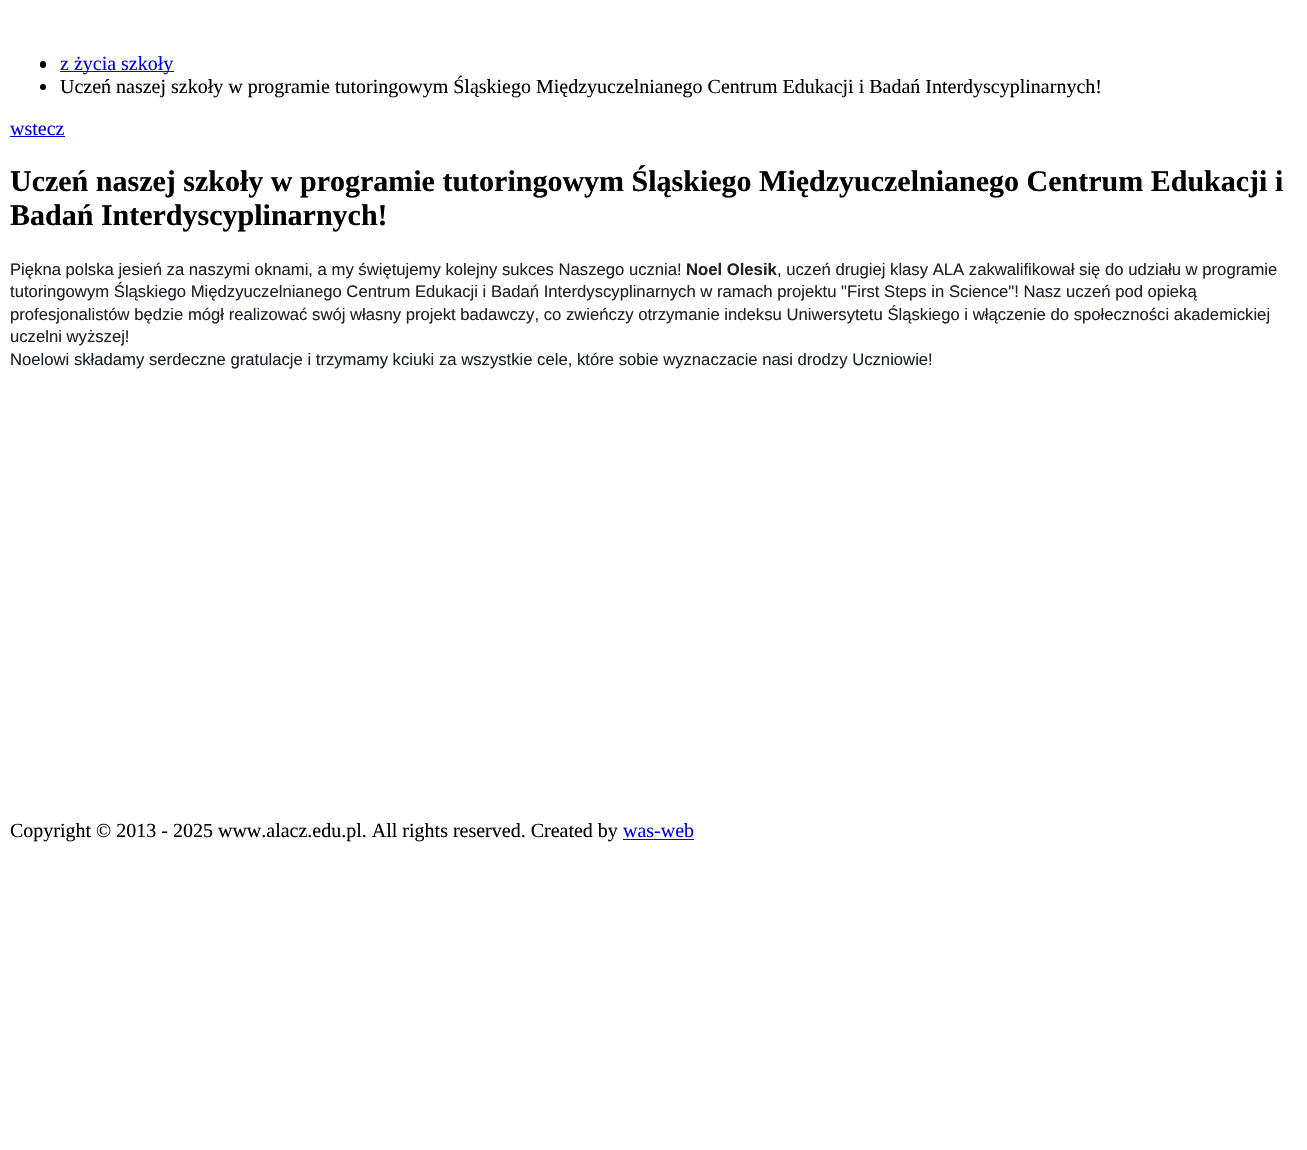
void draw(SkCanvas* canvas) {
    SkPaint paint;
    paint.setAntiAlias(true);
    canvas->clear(0xFFFFFFFF);
    paint.setColor(0xFF000000);
    canvas->drawRoundRect(SkRect::MakeXYWH(40, 61, 6, 7), 3, 3, paint);
    paint.setColor(0xFF0000EE);
    canvas->drawRect(SkRect::MakeXYWH(60, 71, 114, 1), paint);
    SkFont font1(fontMgr->matchFamilyStyle("Liberation Serif", SkFontStyle::Normal()), 20);
    font1.setSubpixel(true);
    canvas->drawString("z życia szkoły", 60, 70, font1, paint);
    paint.setColor(0xFF000000);
    canvas->drawCircle(43, 87, 3, paint);
    canvas->drawString("Uczeń naszej szkoły w programie tutoringowym Śląskiego Międzyuczelnianego Centrum Edukacji i Badań Interdyscyplinarnych!", 60, 93, font1, paint);
    paint.setColor(0xFF0000EE);
    canvas->drawString("wstecz", 10, 135, font1, paint);
    canvas->drawRect(SkRect::MakeXYWH(10, 136, 55, 1), paint);
    SkFont font2(fontMgr->matchFamilyStyle("Liberation Serif", SkFontStyle::Bold()), 30);
    font2.setSubpixel(true);
    paint.setColor(0xFF000000);
    canvas->drawString("Uczeń naszej szkoły w programie tutoringowym Śląskiego Międzyuczelnianego Centrum Edukacji i", 10, 191, font2, paint);
    canvas->drawString("Badań Interdyscyplinarnych!", 10, 225, font2, paint);
    SkFont font3(fontMgr->matchFamilyStyle("Liberation Sans", SkFontStyle::Normal()), 16.67f);
    font3.setSubpixel(true);
    paint.setColor(0xFF1D2129);
    canvas->drawString("Piękna polska jesień za naszymi oknami, a my świętujemy kolejny sukces Naszego ucznia!", 10, 275, font3, paint);
    SkFont font4(fontMgr->matchFamilyStyle("Liberation Sans", SkFontStyle::Bold()), 16.67f);
    font4.setSubpixel(true);
    canvas->drawString("Noel Olesik", 686, 275, font4, paint);
    canvas->drawString(", uczeń drugiej klasy ALA zakwalifikował się do udziału w programie", 777, 275, font3, paint);
    canvas->drawString("tutoringowym Śląskiego Międzyuczelnianego Centrum Edukacji i Badań Interdyscyplinarnych w ramach projektu \"First Steps in Science\"! Nasz uczeń pod opieką", 10, 297, font3, paint);
    canvas->drawString("profesjonalistów będzie mógł realizować swój własny projekt badawczy, co zwieńczy otrzymanie indeksu Uniwersytetu Śląskiego i włączenie do społeczności akademickiej", 10, 320, font3, paint);
    canvas->drawString("uczelni wyższej!", 10, 342, font3, paint);
    canvas->drawString("Noelowi składamy serdeczne gratulacje i trzymamy kciuki za wszystkie cele, które sobie wyznaczacie nasi drodzy Uczniowie!", 10, 365, font3, paint);
    paint.setColor(0xFF000000);
    canvas->drawString("Copyright © 2013 - 2025 www.alacz.edu.pl. All rights reserved. Created by", 10, 837, font1, paint);
    paint.setColor(0xFF0000EE);
    canvas->drawString("was-web", 623, 837, font1, paint);
    canvas->drawRect(SkRect::MakeXYWH(623, 839, 71, 1), paint);
}
